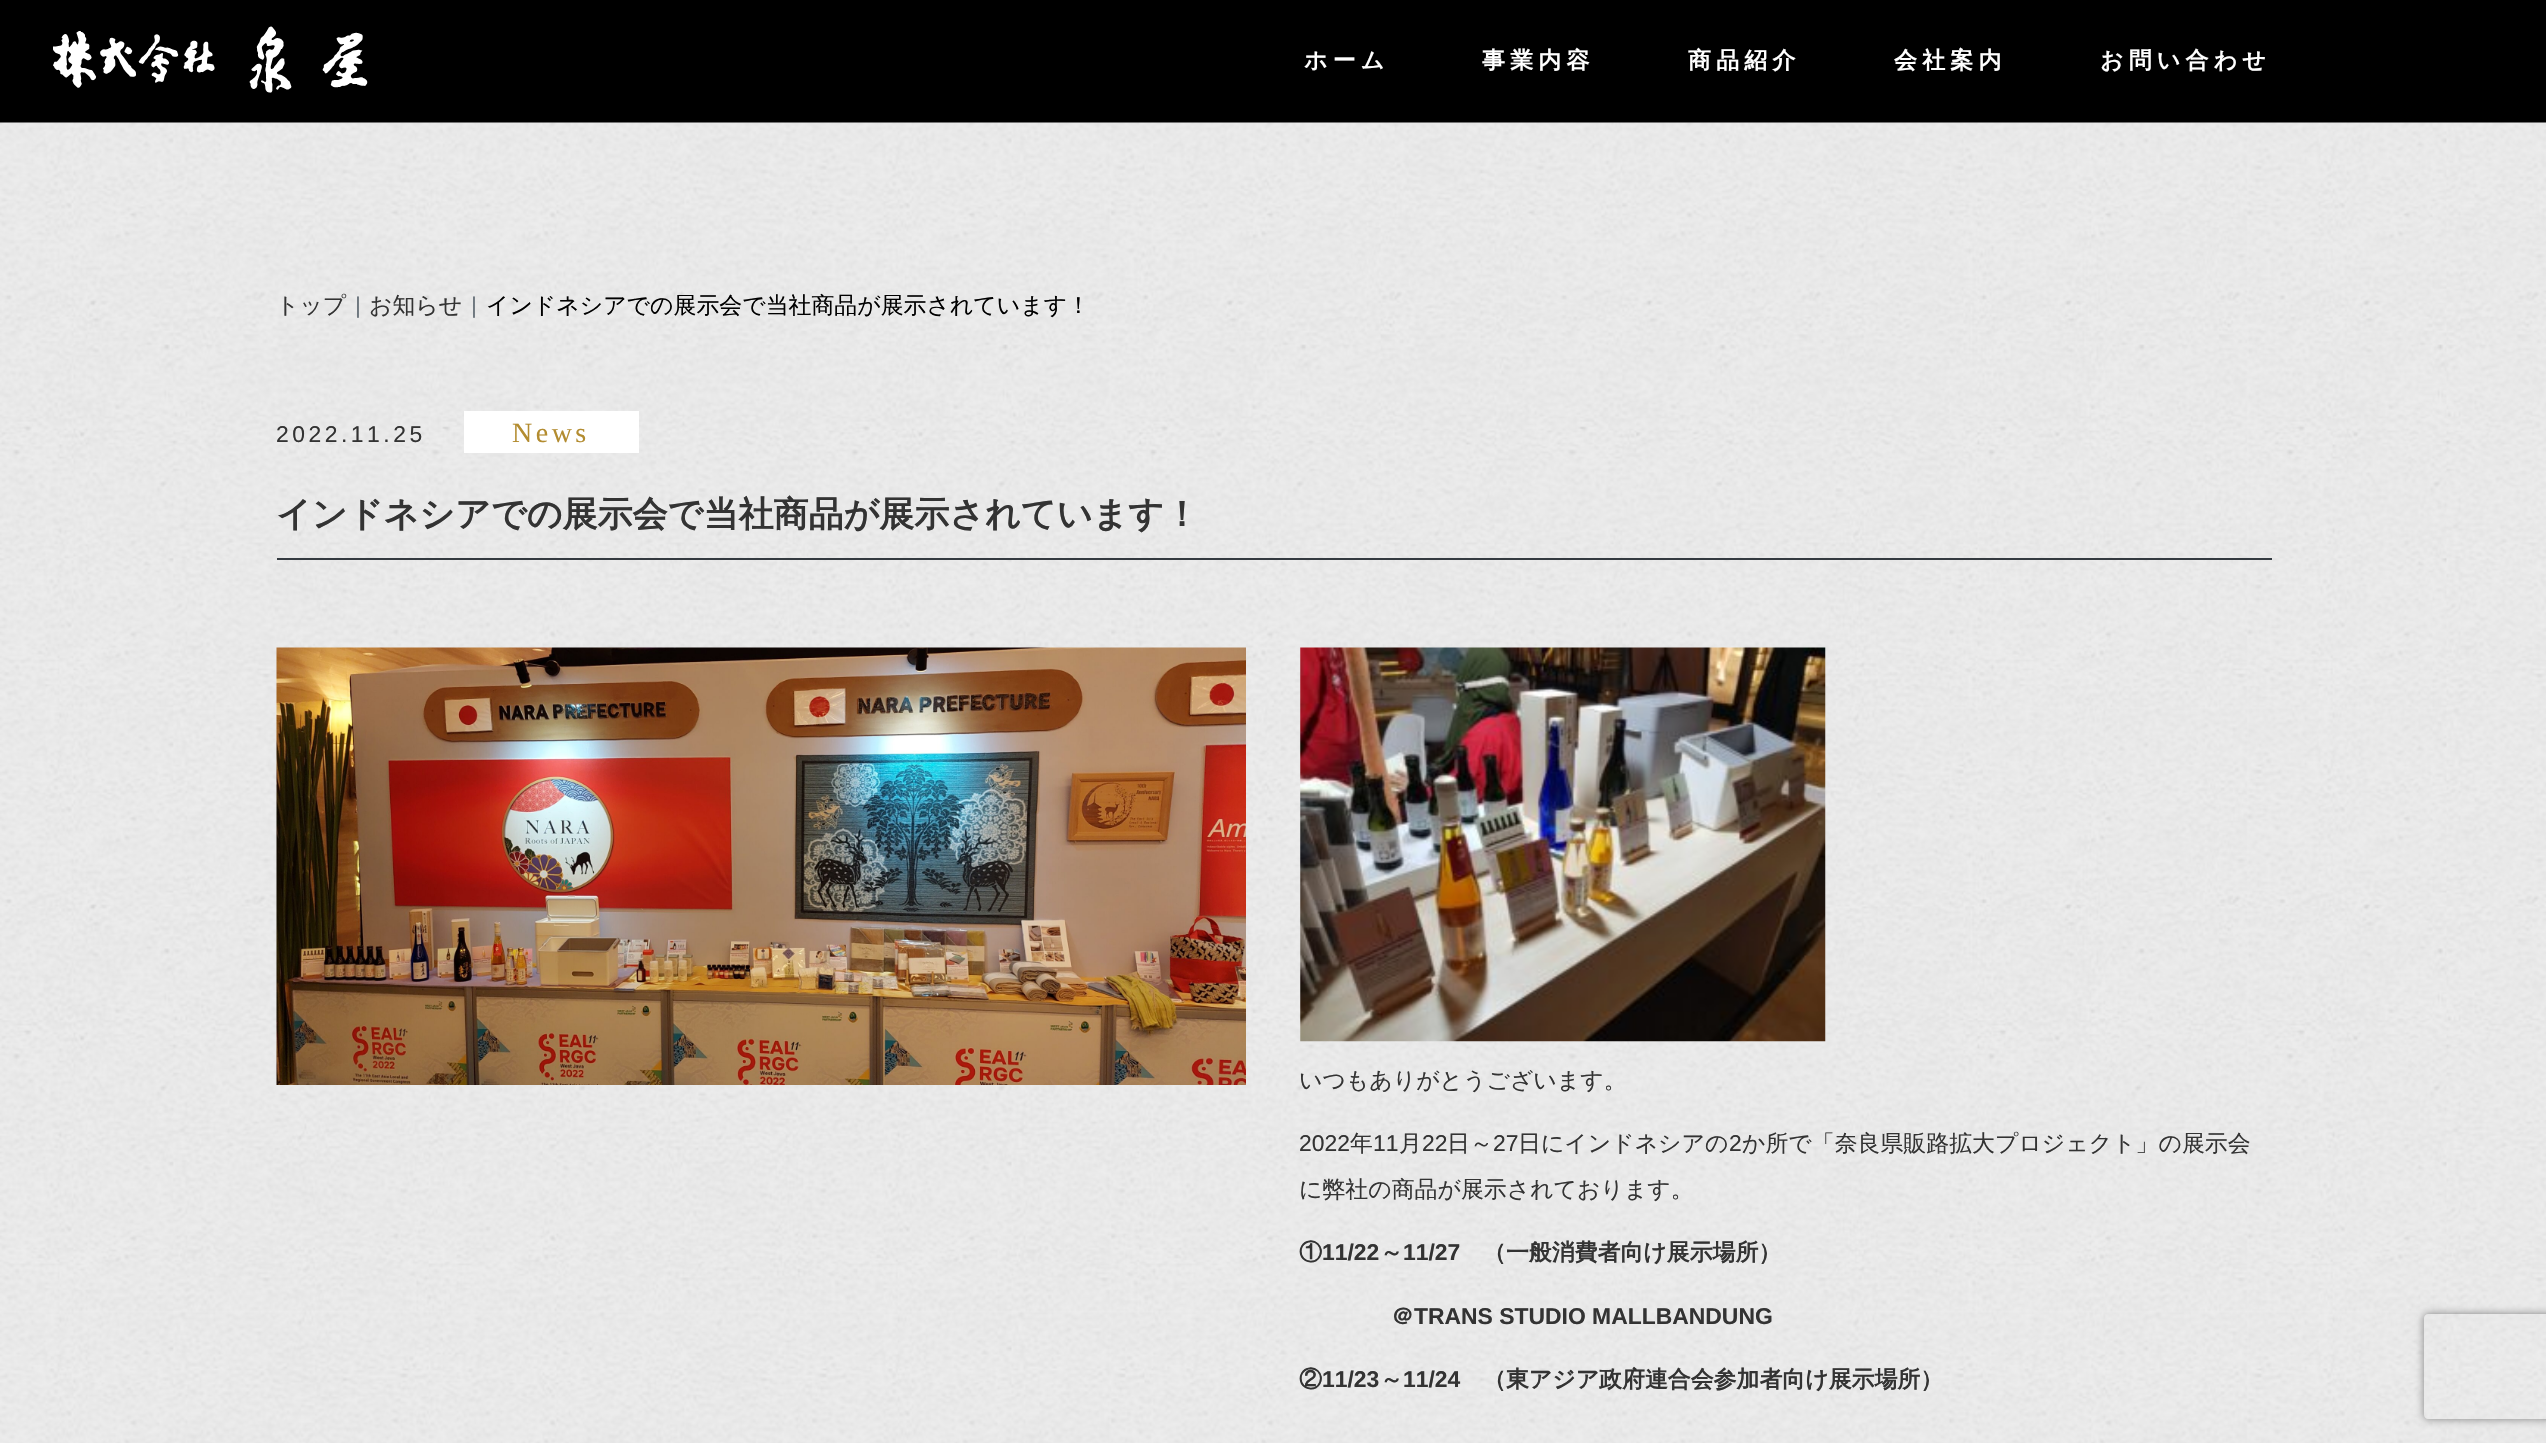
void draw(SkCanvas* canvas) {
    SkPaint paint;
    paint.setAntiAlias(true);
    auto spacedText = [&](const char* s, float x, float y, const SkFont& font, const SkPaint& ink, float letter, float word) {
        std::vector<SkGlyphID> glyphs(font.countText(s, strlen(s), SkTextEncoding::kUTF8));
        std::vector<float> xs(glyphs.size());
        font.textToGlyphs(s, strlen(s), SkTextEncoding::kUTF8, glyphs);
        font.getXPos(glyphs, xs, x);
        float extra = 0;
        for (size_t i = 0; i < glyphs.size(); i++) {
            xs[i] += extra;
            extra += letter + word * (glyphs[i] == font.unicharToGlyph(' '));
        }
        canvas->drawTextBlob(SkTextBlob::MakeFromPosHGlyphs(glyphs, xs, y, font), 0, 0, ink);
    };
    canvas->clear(0xFF000000);
    canvas->drawImageRect(SkImages::DeferredFromEncodedData(SkData::MakeFromFileName("img1.png")), SkRect::MakeXYWH(53, 26, 315, 67), SkSamplingOptions());
    SkFont font1(fontMgr->matchFamilyStyle("WenQuanYi Zen Hei", SkFontStyle::Bold()), 22.9f);
    font1.setSubpixel(true);
    paint.setColor(0xFFFFFFFF);
    spacedText("ホーム", 1304, 68, font1, paint, 5.25f, 0);
    spacedText("事業内容", 1482, 68, font1, paint, 5.25f, 0);
    spacedText("商品紹介", 1688, 68, font1, paint, 5.25f, 0);
    spacedText("会社案内", 1894, 68, font1, paint, 5.25f, 0);
    spacedText("お問い合わせ", 2100, 68, font1, paint, 5.25f, 0);
    canvas->drawImageRect(SkImages::DeferredFromEncodedData(SkData::MakeFromFileName("img2.png")), SkRect::MakeXYWH(0, 122, 2546, 1321), SkSamplingOptions());
    SkFont font2(fontMgr->matchFamilyStyle("WenQuanYi Zen Hei", SkFontStyle(500, SkFontStyle::kNormal_Width, SkFontStyle::kUpright_Slant)), 22.9f);
    font2.setSubpixel(true);
    paint.setColor(0xFF333333);
    canvas->drawString("トップ", 276, 313, font2, paint);
    SkFont font3(fontMgr->matchFamilyStyle("Liberation Sans", SkFontStyle::Normal()), 22.9f);
    font3.setSubpixel(true);
    paint.setColor(0xFF6C757D);
    canvas->drawString("|", 355, 313, font3, paint);
    paint.setColor(0xFF333333);
    canvas->drawString("お知らせ", 369, 313, font2, paint);
    paint.setColor(0xFF6C757D);
    canvas->drawString("|", 471, 313, font3, paint);
    paint.setColor(0xFF000000);
    canvas->drawString("インドネシアでの展示会で当社商品が展示されています！", 486, 313, font2, paint);
    paint.setColor(0xFF333333);
    spacedText("2022.11.25", 276, 442, font3, paint, 3.5f, 0);
    paint.setColor(0xFFFFFFFF);
    canvas->drawRect(SkRect::MakeXYWH(464, 411, 175, 42), paint);
    SkFont font4(fontMgr->matchFamilyStyle("Liberation Serif", SkFontStyle::Normal()), 28);
    font4.setSubpixel(true);
    paint.setColor(0xFFB38C30);
    spacedText("News", 512, 442, font4, paint, 3.5f, 0);
    paint.setColor(0xFF343A40);
    canvas->drawRect(SkRect::MakeXYWH(277, 558, 1995, 2), paint);
    SkFont font5(fontMgr->matchFamilyStyle("WenQuanYi Zen Hei", SkFontStyle::Bold()), 35);
    font5.setSubpixel(true);
    paint.setColor(0xFF333333);
    canvas->drawString("インドネシアでの展示会で当社商品が展示されています！", 276, 526, font5, paint);
    canvas->drawImageRect(SkImages::DeferredFromEncodedData(SkData::MakeFromFileName("img3.png")), SkRect::MakeXYWH(276, 647, 970, 438), SkSamplingOptions());
    canvas->drawImageRect(SkImages::DeferredFromEncodedData(SkData::MakeFromFileName("img4.png")), SkRect::MakeXYWH(1300, 647, 526, 395), SkSamplingOptions());
    canvas->drawString("いつもありがとうございます。", 1299, 1088, font2, paint);
    canvas->drawString("2022", 1299, 1151, font3, paint);
    canvas->drawString("年", 1350, 1151, font2, paint);
    canvas->drawString("11", 1373, 1151, font3, paint);
    canvas->drawString("月", 1399, 1151, font2, paint);
    canvas->drawString("22", 1422, 1151, font3, paint);
    canvas->drawString("日～", 1447, 1151, font2, paint);
    canvas->drawString("27", 1493, 1151, font3, paint);
    canvas->drawString("日にインドネシアの", 1518, 1151, font2, paint);
    canvas->drawString("2", 1729, 1151, font3, paint);
    canvas->drawString("か所で「奈良県販路拡大プロジェクト」の展示会", 1742, 1151, font2, paint);
    canvas->drawString("に弊社の商品が展示されております。", 1299, 1197, font2, paint);
    canvas->drawString("①", 1299, 1260, font1, paint);
    SkFont font6(fontMgr->matchFamilyStyle("Liberation Sans", SkFontStyle::Bold()), 22.9f);
    font6.setSubpixel(true);
    canvas->drawString("11/22", 1322, 1260, font6, paint);
    canvas->drawString("～", 1380, 1260, font1, paint);
    canvas->drawString("11/27", 1403, 1260, font6, paint);
    canvas->drawString("（一般消費者向け展示場所）", 1483, 1260, font1, paint);
    canvas->drawString("＠", 1391, 1324, font1, paint);
    canvas->drawString("TRANS STUDIO MALLBANDUNG", 1414, 1324, font6, paint);
    canvas->drawString("②", 1299, 1387, font1, paint);
    canvas->drawString("11/23", 1322, 1387, font6, paint);
    canvas->drawString("～", 1380, 1387, font1, paint);
    canvas->drawString("11/24", 1403, 1387, font6, paint);
    canvas->drawString("（東アジア政府連合会参加者向け展示場所）", 1483, 1387, font1, paint);
    canvas->save();
    canvas->clipPath(SkPathBuilder(SkPathFillType::kEvenOdd).moveTo(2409, 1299).lineTo(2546, 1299).lineTo(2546, 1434).lineTo(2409, 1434).close().moveTo(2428, 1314).lineTo(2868, 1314).cubicTo(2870, 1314, 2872, 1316, 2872, 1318).lineTo(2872, 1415).cubicTo(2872, 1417, 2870, 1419, 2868, 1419).lineTo(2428, 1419).cubicTo(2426, 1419, 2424, 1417, 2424, 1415).lineTo(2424, 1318).cubicTo(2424, 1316, 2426, 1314, 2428, 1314).close().detach(), true);
    paint.setColor(0xFF808080);
    paint.setMaskFilter(SkMaskFilter::MakeBlur(kNormal_SkBlurStyle, 4.5f));
    canvas->drawRoundRect(SkRect::MakeXYWH(2424, 1314, 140, 105), 4, 4, paint);
    paint.setMaskFilter(nullptr);
    canvas->restore();
}
